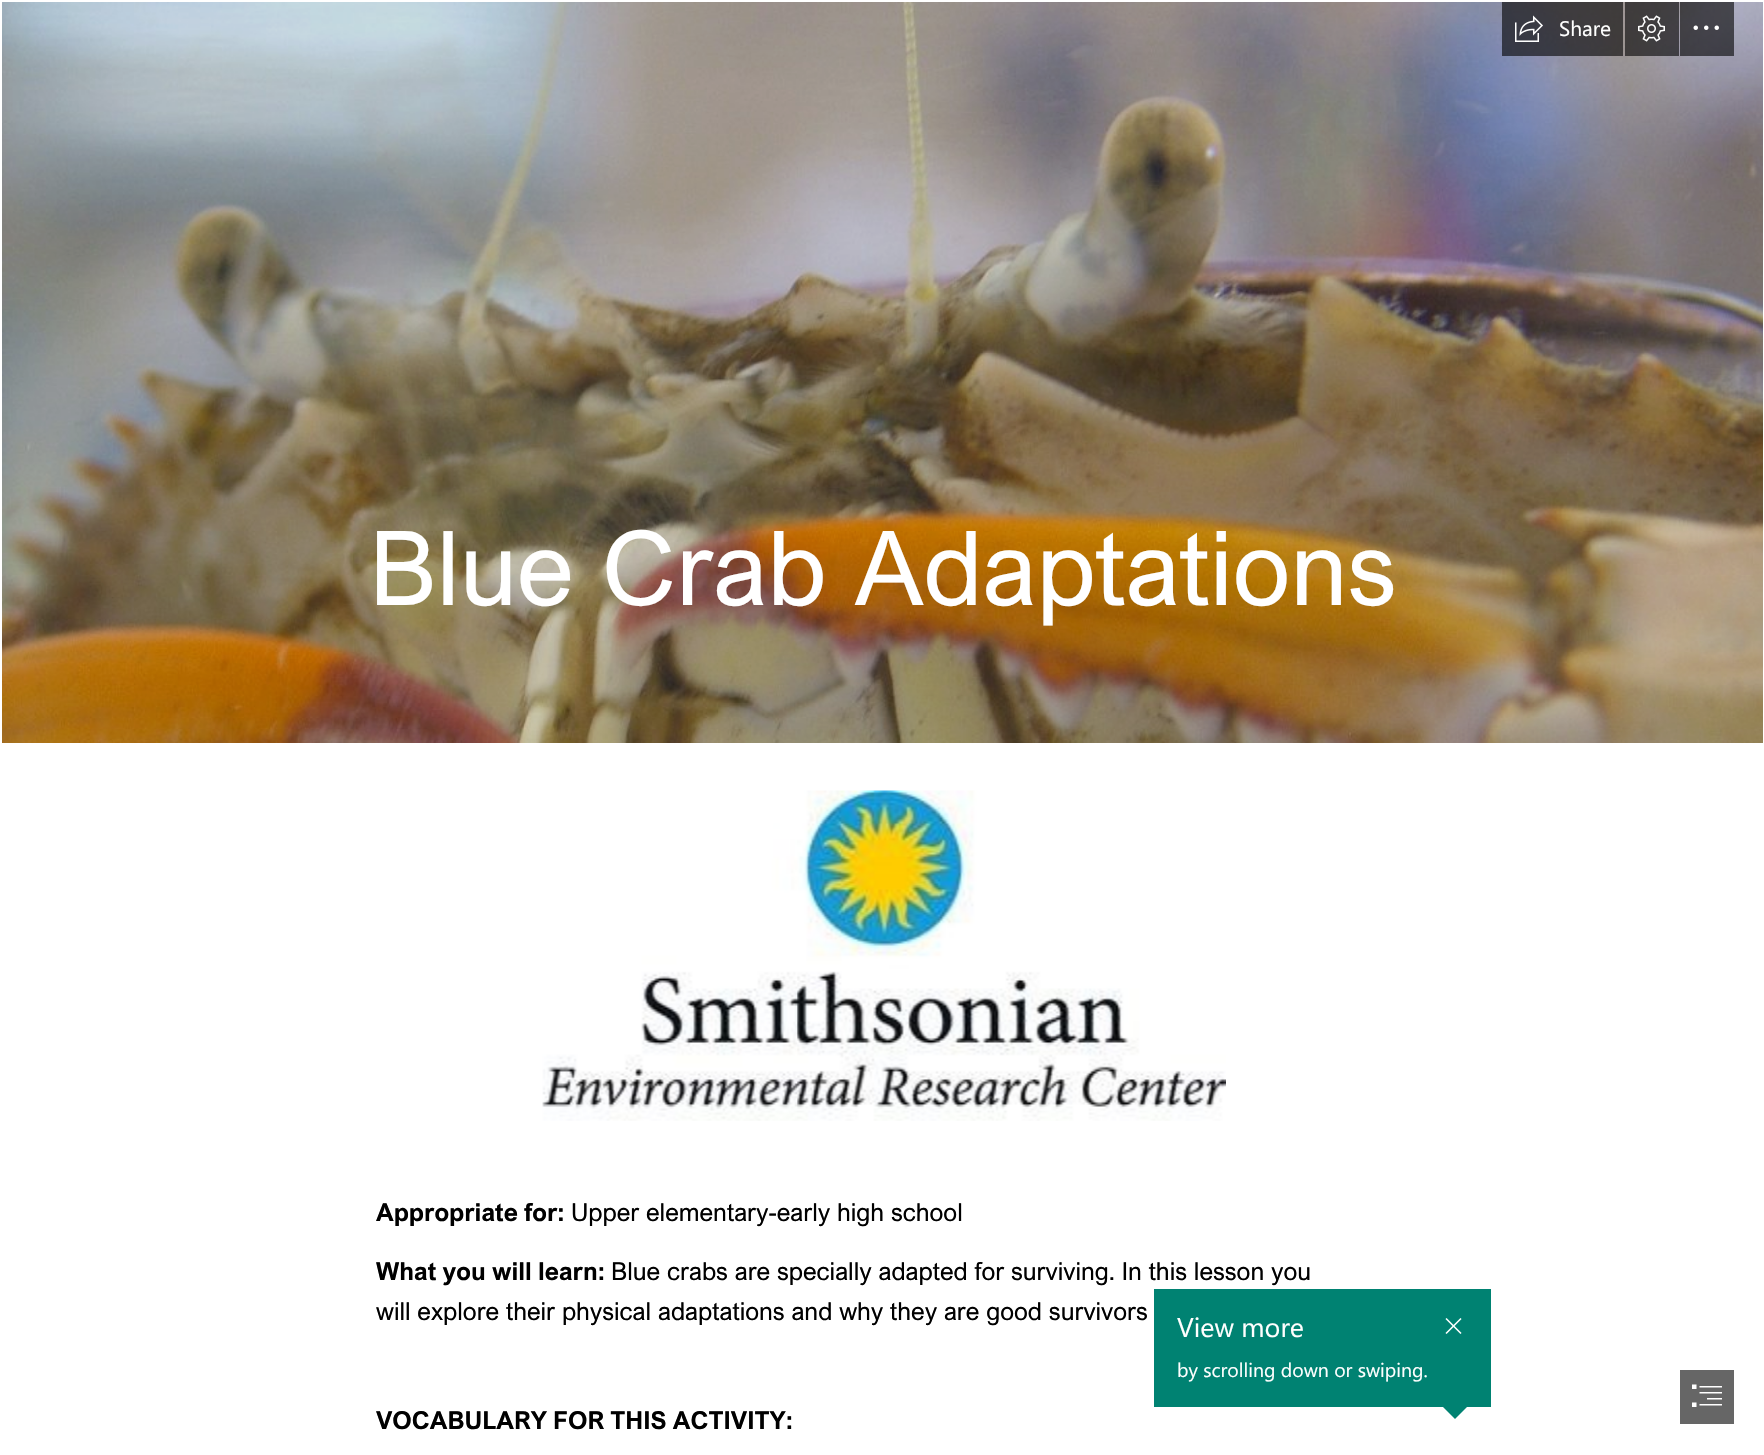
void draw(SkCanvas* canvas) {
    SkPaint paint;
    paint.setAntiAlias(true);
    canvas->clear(0xFFFFFFFF);
    canvas->drawImageRect(SkImages::DeferredFromEncodedData(SkData::MakeFromFileName("img4.png")), SkRect::MakeXYWH(2, 2, 1761, 741), SkSamplingOptions());
    paint.setColor(0x99000000);
    canvas->drawRect(SkRect::MakeXYWH(1502, 2, 121, 54), paint);
    canvas->drawImageRect(SkImages::DeferredFromEncodedData(SkData::MakeFromFileName("img1.png")), SkRect::MakeXYWH(1515, 15, 28, 27), SkSamplingOptions());
    SkFont font1(fontMgr->matchFamilyStyle("Segoe UI", SkFontStyle::Normal()), 21);
    font1.setSubpixel(true);
    paint.setColor(0xFFFFFFFF);
    canvas->drawString("Share", 1559, 36, font1, paint);
    paint.setColor(0x99000000);
    canvas->drawRect(SkRect::MakeXYWH(1625, 2, 54, 54), paint);
    canvas->drawImageRect(SkImages::DeferredFromEncodedData(SkData::MakeFromFileName("img2.png")), SkRect::MakeXYWH(1638, 15, 27, 27), SkSamplingOptions());
    canvas->drawRect(SkRect::MakeXYWH(1680, 2, 54, 54), paint);
    canvas->drawImageRect(SkImages::DeferredFromEncodedData(SkData::MakeFromFileName("img3.png")), SkRect::MakeXYWH(1693, 25, 26, 5), SkSamplingOptions());
    SkFont font2(fontMgr->matchFamilyStyle("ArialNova", SkFontStyle::Normal()), 103.25f);
    font2.setSubpixel(true);
    paint.setColor(0xFFFFFFFF);
    canvas->drawString("Blue Crab Adaptations", 369, 605, font2, paint);
    canvas->drawImageRect(SkImages::DeferredFromEncodedData(SkData::MakeFromFileName("img5.png")), SkRect::MakeXYWH(542, 790, 684, 331), SkSamplingOptions());
    SkFont font3(fontMgr->matchFamilyStyle("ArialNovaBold", SkFontStyle::Bold()), 24.8f);
    font3.setSubpixel(true);
    paint.setColor(0xFF000000);
    canvas->drawString("Appropriate for:", 376, 1221, font3, paint);
    SkFont font4(fontMgr->matchFamilyStyle("ArialNova", SkFontStyle::Normal()), 24.8f);
    font4.setSubpixel(true);
    canvas->drawString("Upper elementary-early high school", 571, 1221, font4, paint);
    canvas->drawString("What you will learn:", 376, 1280, font3, paint);
    canvas->drawString("Blue crabs are specially adapted for surviving. In this lesson you", 611, 1280, font4, paint);
    canvas->drawString("will explore their physical adaptations and why they are good survivors", 376, 1320, font4, paint);
    canvas->drawString("VOCABULARY FOR THIS ACTIVITY:", 376, 1429, font3, paint);
    paint.setColor(0xFF008272);
    canvas->drawRect(SkRect::MakeXYWH(1154, 1289, 337, 118), paint);
    SkFont font5(fontMgr->matchFamilyStyle("Segoe UI", SkFontStyle::Normal()), 27);
    font5.setSubpixel(true);
    paint.setColor(0xFFFFFFFF);
    canvas->drawString("View more", 1177, 1337, font5, paint);
    SkFont font6(fontMgr->matchFamilyStyle("Segoe UI", SkFontStyle::Normal()), 19.5f);
    font6.setSubpixel(true);
    canvas->drawString("by scrolling down or swiping.", 1177, 1377, font6, paint);
    canvas->drawImageRect(SkImages::DeferredFromEncodedData(SkData::MakeFromFileName("img6.png")), SkRect::MakeXYWH(1445, 1318, 17, 16), SkSamplingOptions());
    paint.setColor(0xFF008272);
    canvas->drawPath(SkPathBuilder().moveTo(1443, 1407).lineTo(1467, 1407).lineTo(1455, 1419).close().detach(), paint);
    paint.setColor(0xFF666666);
    canvas->drawRect(SkRect::MakeXYWH(1680, 1370, 54, 54), paint);
    canvas->drawImageRect(SkImages::DeferredFromEncodedData(SkData::MakeFromFileName("img7.png")), SkRect::MakeXYWH(1692, 1384, 30, 23), SkSamplingOptions());
}
